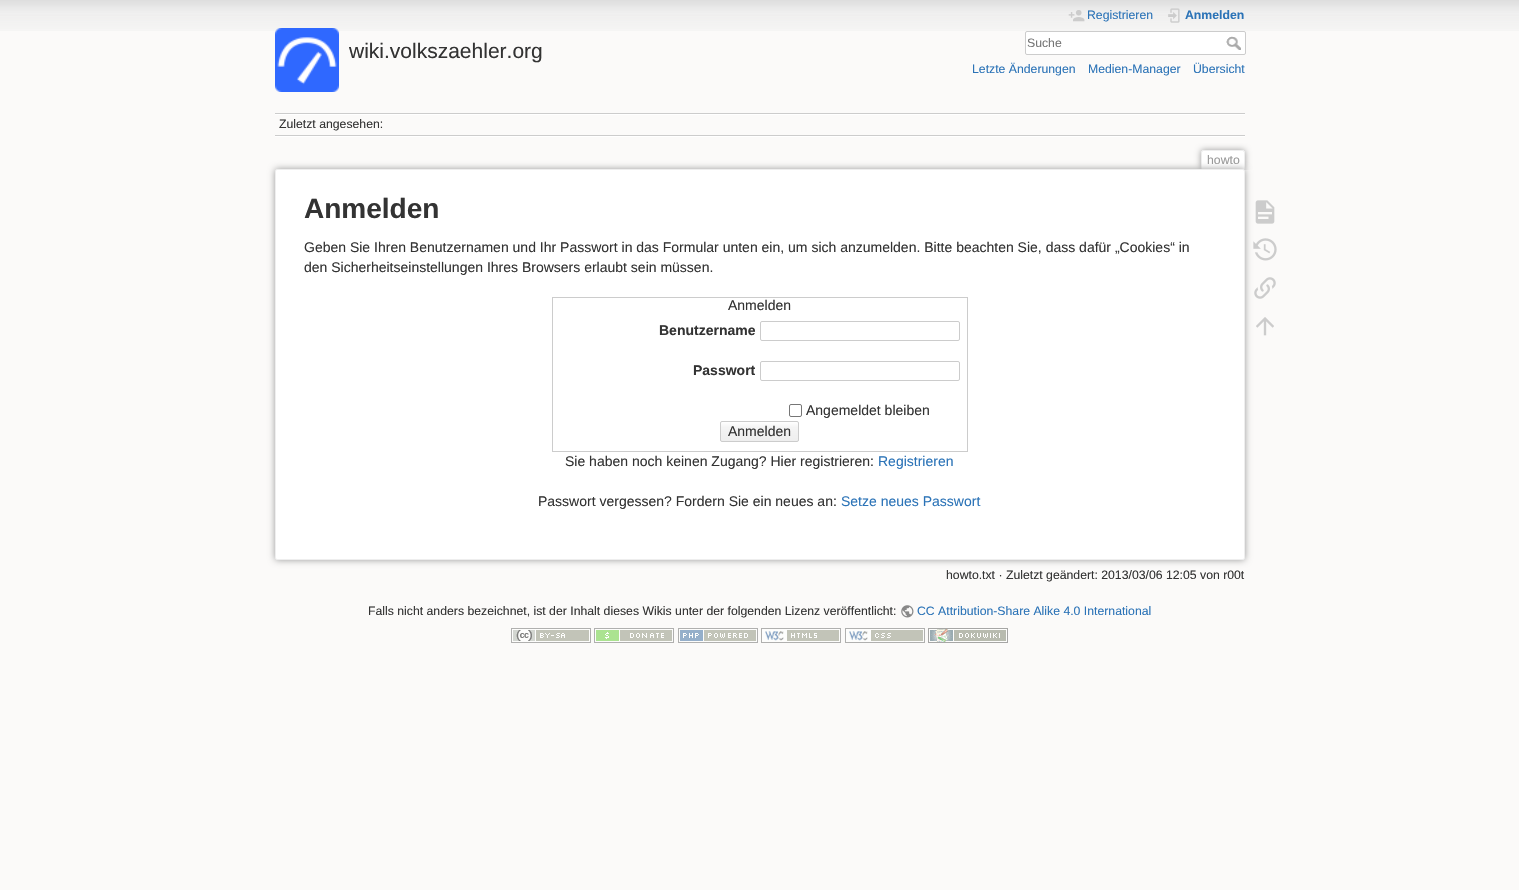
void draw(SkCanvas* canvas) {
    SkPaint paint;
    paint.setAntiAlias(true);
    canvas->clear(0xFFFBFAF9);
    canvas->drawImageRect(SkImages::DeferredFromEncodedData(SkData::MakeFromFileName("img1.png")), SkRect::MakeXYWH(0, 0, 1519, 31), SkSamplingOptions());
    canvas->drawImageRect(SkImages::DeferredFromEncodedData(SkData::MakeFromFileName("img2.png")), SkRect::MakeXYWH(275, 28, 64, 64), SkSamplingOptions());
    SkFont font1(fontMgr->matchFamilyStyle("Liberation Sans", SkFontStyle::Normal()), 21);
    font1.setSubpixel(true);
    paint.setColor(0xFF333333);
    canvas->drawString("wiki.volkszaehler.org", 349, 58, font1, paint);
    canvas->drawImageRect(SkImages::DeferredFromEncodedData(SkData::MakeFromFileName("img3.png")), SkRect::MakeXYWH(1068, 10, 17, 12), SkSamplingOptions());
    SkFont font2(fontMgr->matchFamilyStyle("Liberation Sans", SkFontStyle::Normal()), 12.25f);
    font2.setSubpixel(true);
    paint.setColor(0xFF2B73B7);
    canvas->drawString("Registrieren", 1087, 19, font2, paint);
    canvas->drawImageRect(SkImages::DeferredFromEncodedData(SkData::MakeFromFileName("img4.png")), SkRect::MakeXYWH(1168, 8, 12, 15), SkSamplingOptions());
    SkFont font3(fontMgr->matchFamilyStyle("Liberation Sans", SkFontStyle::Bold()), 12.25f);
    font3.setSubpixel(true);
    canvas->drawString("Anmelden", 1185, 19, font3, paint);
    paint.setColor(0xFFFFFFFF);
    canvas->drawRoundRect(SkRect::MakeXYWH(1025.5f, 31.5f, 220, 23), 1.5f, 1.5f, paint);
    paint.setStyle(SkPaint::kStroke_Style);
    paint.setStrokeWidth(1);
    paint.setColor(0xFFCCCCCC);
    canvas->drawRoundRect(SkRect::MakeXYWH(1025.5f, 31.5f, 220, 23), 1.5f, 1.5f, paint);
    paint.setStyle(SkPaint::kFill_Style);
    paint.setColor(0xFF757575);
    canvas->drawString("Suche", 1027, 47, font2, paint);
    canvas->drawImageRect(SkImages::DeferredFromEncodedData(SkData::MakeFromFileName("img5.png")), SkRect::MakeXYWH(1226, 36, 15, 14), SkSamplingOptions());
    paint.setColor(0xFF2B73B7);
    canvas->drawString("Letzte Änderungen", 972, 73, font2, paint);
    canvas->drawString("Medien-Manager", 1088, 73, font2, paint);
    canvas->drawString("Übersicht", 1193, 73, font2, paint);
    paint.setColor(0xFFCCCCCC);
    canvas->drawRect(SkRect::MakeXYWH(275, 113, 970, 1), paint);
    paint.setColor(0xFFFFFFFF);
    canvas->drawRect(SkRect::MakeXYWH(275, 136, 970, 1), paint);
    canvas->drawRect(SkRect::MakeXYWH(275, 114, 970, 1), paint);
    paint.setColor(0xFFCCCCCC);
    canvas->drawRect(SkRect::MakeXYWH(275, 135, 970, 1), paint);
    paint.setColor(0xFF333333);
    canvas->drawString("Zuletzt angesehen:", 279, 128, font2, paint);
    canvas->save();
    canvas->clipRect(SkRect::MakeXYWH(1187, 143, 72, 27));
    paint.setColor(0xFF999999);
    paint.setMaskFilter(SkMaskFilter::MakeBlur(kNormal_SkBlurStyle, 3));
    canvas->drawRoundRect(SkRect::MakeXYWH(1201, 150, 44, 20), 2, 2, paint);
    paint.setMaskFilter(nullptr);
    canvas->restore();
    paint.setColor(0xFFFFFFFF);
    canvas->drawPath(SkPathBuilder().moveTo(1203, 151).lineTo(1243, 151).cubicTo(1243.5f, 151, 1244, 151.5f, 1244, 152).lineTo(1244, 170).lineTo(1202, 170).lineTo(1202, 152).cubicTo(1202, 151.5f, 1202.5f, 151, 1203, 151).close().detach(), paint);
    paint.setColor(0xFFEEEEEE);
    canvas->drawRect(SkRect::MakeXYWH(1202, 150, 42, 1), paint);
    canvas->drawRect(SkRect::MakeXYWH(1244, 151, 1, 19), paint);
    canvas->drawRect(SkRect::MakeXYWH(1201, 151, 1, 19), paint);
    paint.setColor(0xFF999999);
    canvas->drawString("howto", 1207, 164, font2, paint);
    paint.setMaskFilter(SkMaskFilter::MakeBlur(kNormal_SkBlurStyle, 3.5f));
    canvas->drawRoundRect(SkRect::MakeXYWH(275, 169, 970, 391), 2, 2, paint);
    paint.setMaskFilter(nullptr);
    paint.setColor(0xFFFFFFFF);
    canvas->drawRoundRect(SkRect::MakeXYWH(275.5f, 169.5f, 969, 390), 1.5f, 1.5f, paint);
    paint.setStyle(SkPaint::kStroke_Style);
    paint.setColor(0xFFEEEEEE);
    canvas->drawRoundRect(SkRect::MakeXYWH(275.5f, 169.5f, 969, 390), 1.5f, 1.5f, paint);
    SkFont font4(fontMgr->matchFamilyStyle("Liberation Sans", SkFontStyle::Bold()), 28);
    font4.setSubpixel(true);
    paint.setStyle(SkPaint::kFill_Style);
    paint.setColor(0xFF333333);
    canvas->drawString("Anmelden", 304, 218, font4, paint);
    SkFont font5(fontMgr->matchFamilyStyle("Liberation Sans", SkFontStyle::Normal()), 14);
    font5.setSubpixel(true);
    canvas->drawString("Geben Sie Ihren Benutzernamen und Ihr Passwort in das Formular unten ein, um sich anzumelden. Bitte beachten Sie, dass dafür „Cookies“ in", 304, 252, font5, paint);
    canvas->drawString("den Sicherheitseinstellungen Ihres Browsers erlaubt sein müssen.", 304, 272, font5, paint);
    paint.setStyle(SkPaint::kStroke_Style);
    paint.setColor(0xFFCCCCCC);
    canvas->drawRect(SkRect::MakeXYWH(552.5f, 297.5f, 415, 154), paint);
    paint.setStyle(SkPaint::kFill_Style);
    paint.setColor(0xFF333333);
    canvas->drawString("Anmelden", 728, 310, font5, paint);
    SkFont font6(fontMgr->matchFamilyStyle("Liberation Sans", SkFontStyle::Bold()), 14);
    font6.setSubpixel(true);
    canvas->drawString("Benutzername", 659, 335, font6, paint);
    paint.setStyle(SkPaint::kStroke_Style);
    paint.setColor(0xFFCCCCCC);
    canvas->drawRoundRect(SkRect::MakeXYWH(760.5f, 321.5f, 199, 19), 1.5f, 1.5f, paint);
    paint.setStyle(SkPaint::kFill_Style);
    paint.setColor(0xFF333333);
    canvas->drawString("Passwort", 693, 375, font6, paint);
    paint.setStyle(SkPaint::kStroke_Style);
    paint.setColor(0xFFCCCCCC);
    canvas->drawRoundRect(SkRect::MakeXYWH(760.5f, 361.5f, 199, 19), 1.5f, 1.5f, paint);
    paint.setColor(0xFF767676);
    canvas->drawRoundRect(SkRect::MakeXYWH(789.5f, 404.5f, 12, 12), 1.5f, 1.5f, paint);
    paint.setStyle(SkPaint::kFill_Style);
    paint.setColor(0xFF333333);
    canvas->drawString("Angemeldet bleiben", 806, 415, font5, paint);
    canvas->save();
    canvas->clipPath(SkPathBuilder().moveTo(722, 421).lineTo(797, 421).cubicTo(798, 421, 799, 422, 799, 423).lineTo(799, 440).cubicTo(799, 441, 798, 442, 797, 442).lineTo(722, 442).cubicTo(721, 442, 720, 441, 720, 440).lineTo(720, 423).cubicTo(720, 422, 721, 421, 722, 421).close().detach(), true);
    {
        const SkColor colors[] = {0xFFFFFFFF, 0xFFF4F4F4, 0xFFEEEEEE, 0xFFCCCCCC};
        const float stops[] = {0, 0.3f, 0.99f, 0.99f};
        const SkPoint ends[] = {{760, 422}, {760, 441}};
        paint.setShader(SkGradientShader::MakeLinear(ends, colors, stops, 4, SkTileMode::kClamp));
        paint.setAlpha(255);
    }
    canvas->drawRect(SkRect::MakeXYWH(720, 422, 79, 19), paint);
    canvas->restore();
    paint.setStyle(SkPaint::kStroke_Style);
    paint.setShader(nullptr);
    paint.setColor(0xFFCCCCCC);
    canvas->drawRoundRect(SkRect::MakeXYWH(720.5f, 421.5f, 78, 20), 1.5f, 1.5f, paint);
    paint.setStyle(SkPaint::kFill_Style);
    paint.setColor(0xFF333333);
    canvas->drawString("Anmelden", 728, 436, font5, paint);
    canvas->drawString("Sie haben noch keinen Zugang? Hier registrieren:", 565, 466, font5, paint);
    paint.setColor(0xFF2B73B7);
    canvas->drawString("Registrieren", 878, 466, font5, paint);
    paint.setColor(0xFF333333);
    canvas->drawString("Passwort vergessen? Fordern Sie ein neues an:", 538, 506, font5, paint);
    paint.setColor(0xFF2B73B7);
    canvas->drawString("Setze neues Passwort", 841, 506, font5, paint);
    paint.setColor(0xFF333333);
    canvas->drawString("howto.txt · Zuletzt geändert: 2013/03/06 12:05 von r00t", 946, 579, font2, paint);
    canvas->drawImageRect(SkImages::DeferredFromEncodedData(SkData::MakeFromFileName("img6.png")), SkRect::MakeXYWH(1255, 200, 20, 24), SkSamplingOptions());
    canvas->drawImageRect(SkImages::DeferredFromEncodedData(SkData::MakeFromFileName("img7.png")), SkRect::MakeXYWH(1253, 238, 24, 23), SkSamplingOptions());
    canvas->drawImageRect(SkImages::DeferredFromEncodedData(SkData::MakeFromFileName("img8.png")), SkRect::MakeXYWH(1254, 277, 22, 22), SkSamplingOptions());
    canvas->drawImageRect(SkImages::DeferredFromEncodedData(SkData::MakeFromFileName("img9.png")), SkRect::MakeXYWH(1256, 317, 18, 19), SkSamplingOptions());
    canvas->drawString("Falls nicht anders bezeichnet, ist der Inhalt dieses Wikis unter der folgenden Lizenz veröffentlicht:", 368, 615, font2, paint);
    canvas->drawImageRect(SkImages::DeferredFromEncodedData(SkData::MakeFromFileName("img10.png")), SkRect::MakeXYWH(901, 605, 13, 13), SkSamplingOptions());
    paint.setColor(0xFF2B73B7);
    canvas->drawString("CC Attribution-Share Alike 4.0 International", 917, 615, font2, paint);
    canvas->drawImageRect(SkImages::DeferredFromEncodedData(SkData::MakeFromFileName("img11.png")), SkRect::MakeXYWH(511, 628, 80, 15), SkSamplingOptions());
    canvas->drawImageRect(SkImages::DeferredFromEncodedData(SkData::MakeFromFileName("img12.png")), SkRect::MakeXYWH(594, 628, 80, 15), SkSamplingOptions());
    canvas->drawImageRect(SkImages::DeferredFromEncodedData(SkData::MakeFromFileName("img13.png")), SkRect::MakeXYWH(678, 628, 80, 15), SkSamplingOptions());
    canvas->drawImageRect(SkImages::DeferredFromEncodedData(SkData::MakeFromFileName("img14.png")), SkRect::MakeXYWH(761, 628, 80, 15), SkSamplingOptions());
    canvas->drawImageRect(SkImages::DeferredFromEncodedData(SkData::MakeFromFileName("img15.png")), SkRect::MakeXYWH(845, 628, 80, 15), SkSamplingOptions());
    canvas->drawImageRect(SkImages::DeferredFromEncodedData(SkData::MakeFromFileName("img16.png")), SkRect::MakeXYWH(928, 628, 80, 15), SkSamplingOptions());
}
